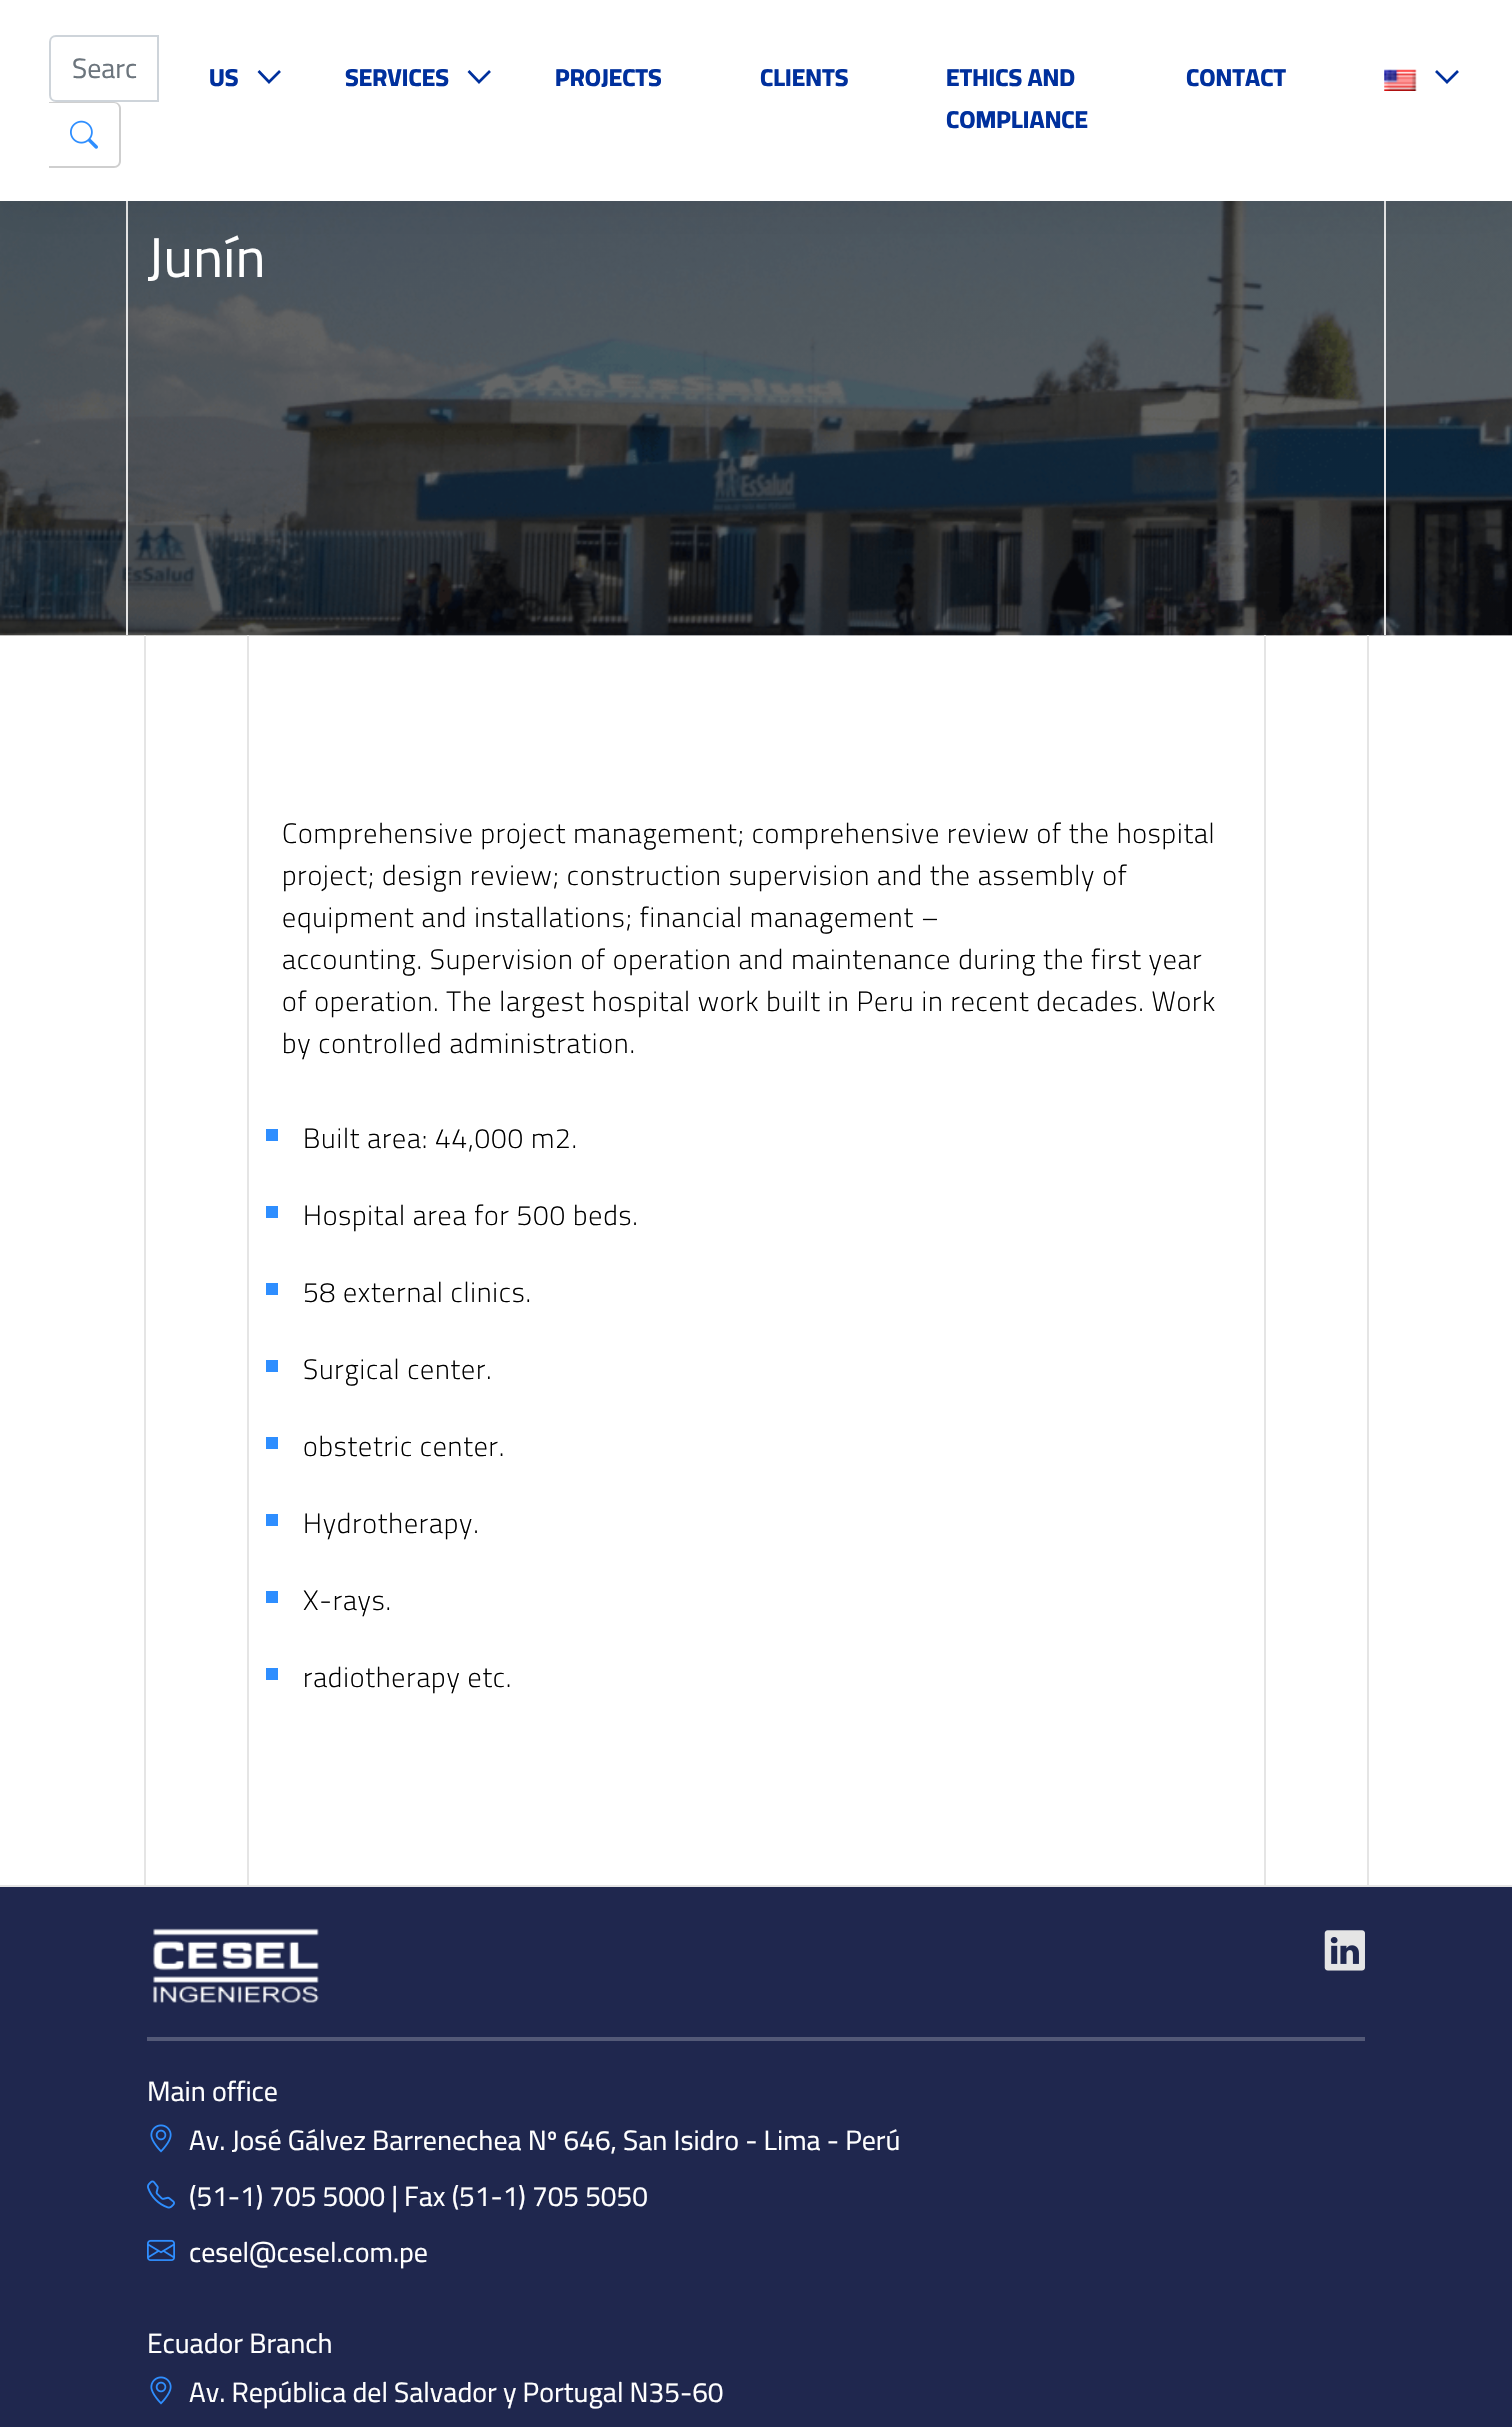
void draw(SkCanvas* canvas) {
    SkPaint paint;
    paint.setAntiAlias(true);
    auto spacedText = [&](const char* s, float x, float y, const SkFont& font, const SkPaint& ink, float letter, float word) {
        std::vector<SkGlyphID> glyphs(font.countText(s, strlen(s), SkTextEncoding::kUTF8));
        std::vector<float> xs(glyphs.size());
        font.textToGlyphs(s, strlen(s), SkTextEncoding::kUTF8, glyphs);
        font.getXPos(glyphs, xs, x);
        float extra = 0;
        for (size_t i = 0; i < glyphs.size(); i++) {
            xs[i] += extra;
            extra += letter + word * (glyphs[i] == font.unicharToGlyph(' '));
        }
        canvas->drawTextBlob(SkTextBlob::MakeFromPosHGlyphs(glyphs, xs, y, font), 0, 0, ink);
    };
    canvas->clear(0xFFFFFFFF);
    canvas->drawImageRect(SkImages::DeferredFromEncodedData(SkData::MakeFromFileName("img3.png")), SkRect::MakeXYWH(0, 201, 1512, 435), SkSamplingOptions());
    paint.setColor(0xFFE5E5E5);
    canvas->drawRect(SkRect::MakeXYWH(1384, 201, 2, 434), paint);
    canvas->drawRect(SkRect::MakeXYWH(126, 201, 2, 434), paint);
    paint.setColor(0x0D000000);
    paint.setMaskFilter(SkMaskFilter::MakeBlur(kNormal_SkBlurStyle, 17.5f));
    canvas->drawRect(SkRect::MakeXYWH(0, 7, 1512, 201), paint);
    paint.setMaskFilter(nullptr);
    paint.setColor(0xFFFFFFFF);
    canvas->drawRect(SkRect::MakeXYWH(0, 0, 1512, 201), paint);
    paint.setStyle(SkPaint::kStroke_Style);
    paint.setStrokeWidth(2);
    paint.setColor(0xFFCED4DA);
    canvas->drawPath(SkPathBuilder().moveTo(56, 36).lineTo(158, 36).lineTo(158, 101).lineTo(56, 101).cubicTo(52.5f, 101, 50, 98.5f, 50, 95).lineTo(50, 42).cubicTo(50, 38.5f, 52.5f, 36, 56, 36).close().detach(), paint);
    SkFont font1(fontMgr->matchFamilyStyle("Cairo", SkFontStyle::Normal()), 28);
    font1.setSubpixel(true);
    paint.setStyle(SkPaint::kFill_Style);
    paint.setColor(0xFF6C757D);
    canvas->drawString("Searc", 72, 78, font1, paint);
    paint.setColor(0xFFCFCFCF);
    canvas->drawPath(SkPathBuilder(SkPathFillType::kEvenOdd).moveTo(49, 102).lineTo(114, 102).cubicTo(118, 102, 121, 105, 121, 108).lineTo(121, 161).cubicTo(121, 165, 118, 168, 114, 168).lineTo(49, 168).close().moveTo(49, 103).lineTo(114, 103).cubicTo(117, 103, 119, 106, 119, 108).lineTo(119, 161).cubicTo(119, 164, 117, 166, 114, 166).lineTo(49, 166).close().detach(), paint);
    canvas->drawImageRect(SkImages::DeferredFromEncodedData(SkData::MakeFromFileName("img1.png")), SkRect::MakeXYWH(70, 120, 28, 29), SkSamplingOptions());
    SkFont font2(fontMgr->matchFamilyStyle("Cairo", SkFontStyle(800, SkFontStyle::kNormal_Width, SkFontStyle::kUpright_Slant)), 24.5f);
    font2.setSubpixel(true);
    paint.setColor(0xFF00309D);
    canvas->drawString("US", 209, 86, font2, paint);
    paint.setStyle(SkPaint::kStroke_Style);
    paint.setStrokeWidth(2.7f);
    canvas->drawPath(SkPathBuilder().moveTo(258.5f, 71).lineTo(269, 82).lineTo(280, 71).detach(), paint);
    paint.setStyle(SkPaint::kFill_Style);
    canvas->drawString("SERVICES", 345, 86, font2, paint);
    paint.setStyle(SkPaint::kStroke_Style);
    canvas->drawPath(SkPathBuilder().moveTo(468.5f, 71).lineTo(479, 82).lineTo(490, 71).detach(), paint);
    paint.setStyle(SkPaint::kFill_Style);
    canvas->drawString("PROJECTS", 555, 86, font2, paint);
    canvas->drawString("CLIENTS", 760, 86, font2, paint);
    canvas->drawString("ETHICS AND", 946, 86, font2, paint);
    canvas->drawString("COMPLIANCE", 946, 128, font2, paint);
    canvas->drawString("CONTACT", 1186, 86, font2, paint);
    canvas->drawImageRect(SkImages::DeferredFromEncodedData(SkData::MakeFromFileName("img2.png")), SkRect::MakeXYWH(1384, 69, 33, 22), SkSamplingOptions());
    paint.setStyle(SkPaint::kStroke_Style);
    canvas->drawPath(SkPathBuilder().moveTo(1436, 71).lineTo(1447, 82).lineTo(1458, 71).detach(), paint);
    SkFont font3(fontMgr->matchFamilyStyle("Cairo", SkFontStyle::Normal()), 56);
    font3.setSubpixel(true);
    paint.setStyle(SkPaint::kFill_Style);
    paint.setColor(0xFFFFFFFF);
    canvas->drawString("Junín", 147, 277, font3, paint);
    paint.setColor(0xFFE5E5E5);
    canvas->drawRect(SkRect::MakeXYWH(0, 1885, 1512, 2), paint);
    canvas->drawRect(SkRect::MakeXYWH(1367, 635, 2, 1250), paint);
    canvas->drawRect(SkRect::MakeXYWH(144, 635, 2, 1250), paint);
    canvas->drawRect(SkRect::MakeXYWH(247, 635, 2, 1250), paint);
    SkFont font4(fontMgr->matchFamilyStyle("Cairo", SkFontStyle(300, SkFontStyle::kNormal_Width, SkFontStyle::kUpright_Slant)), 28);
    font4.setSubpixel(true);
    paint.setColor(0xFF000000);
    spacedText("Comprehensive project management; comprehensive review of the hospital", 282, 843, font4, paint, 0.8f, 0);
    spacedText("project; design review; construction supervision and the assembly of", 282, 885, font4, paint, 0.8f, 0);
    spacedText("equipment and installations; financial management –", 282, 927, font4, paint, 0.8f, 0);
    spacedText("accounting. Supervision of operation and maintenance during the first year", 282, 969, font4, paint, 0.8f, 0);
    spacedText("of operation. The largest hospital work built in Peru in recent decades. Work", 282, 1011, font4, paint, 0.8f, 0);
    spacedText("by controlled administration.", 282, 1053, font4, paint, 0.8f, 0);
    paint.setColor(0xFF2E8EFF);
    canvas->drawRect(SkRect::MakeXYWH(266, 1129, 12, 12), paint);
    paint.setColor(0xFF000000);
    spacedText("Built area: 44,000 m2.", 303, 1148, font4, paint, 0.8f, 0);
    paint.setColor(0xFF2E8EFF);
    canvas->drawRect(SkRect::MakeXYWH(266, 1206, 12, 12), paint);
    paint.setColor(0xFF000000);
    spacedText("Hospital area for 500 beds.", 303, 1225, font4, paint, 0.8f, 0);
    paint.setColor(0xFF2E8EFF);
    canvas->drawRect(SkRect::MakeXYWH(266, 1283, 12, 12), paint);
    paint.setColor(0xFF000000);
    spacedText("58 external clinics.", 303, 1302, font4, paint, 0.8f, 0);
    paint.setColor(0xFF2E8EFF);
    canvas->drawRect(SkRect::MakeXYWH(266, 1360, 12, 12), paint);
    paint.setColor(0xFF000000);
    spacedText("Surgical center.", 303, 1379, font4, paint, 0.8f, 0);
    paint.setColor(0xFF2E8EFF);
    canvas->drawRect(SkRect::MakeXYWH(266, 1437, 12, 12), paint);
    paint.setColor(0xFF000000);
    spacedText("obstetric center.", 303, 1456, font4, paint, 0.8f, 0);
    paint.setColor(0xFF2E8EFF);
    canvas->drawRect(SkRect::MakeXYWH(266, 1514, 12, 12), paint);
    paint.setColor(0xFF000000);
    spacedText("Hydrotherapy.", 303, 1533, font4, paint, 0.8f, 0);
    paint.setColor(0xFF2E8EFF);
    canvas->drawRect(SkRect::MakeXYWH(266, 1591, 12, 12), paint);
    paint.setColor(0xFF000000);
    spacedText("X-rays.", 303, 1610, font4, paint, 0.8f, 0);
    paint.setColor(0xFF2E8EFF);
    canvas->drawRect(SkRect::MakeXYWH(266, 1668, 12, 12), paint);
    paint.setColor(0xFF000000);
    spacedText("radiotherapy etc.", 303, 1687, font4, paint, 0.8f, 0);
    paint.setColor(0xFFE5E5E5);
    canvas->drawRect(SkRect::MakeXYWH(1264, 635, 2, 1250), paint);
    paint.setColor(0xFF1F274E);
    canvas->drawRect(SkRect::MakeXYWH(0, 1887, 1512, 540), paint);
    canvas->drawImageRect(SkImages::DeferredFromEncodedData(SkData::MakeFromFileName("img4.png")), SkRect::MakeXYWH(153, 1928, 166, 75), SkSamplingOptions());
    canvas->drawImageRect(SkImages::DeferredFromEncodedData(SkData::MakeFromFileName("img5.png")), SkRect::MakeXYWH(1324, 1930, 41, 41), SkSamplingOptions());
    paint.setColor(0xFF535977);
    canvas->drawRect(SkRect::MakeXYWH(147, 2037, 1218, 4), paint);
    paint.setColor(0xFFFFFFFF);
    canvas->drawString("Main office", 147, 2101, font1, paint);
    canvas->drawImageRect(SkImages::DeferredFromEncodedData(SkData::MakeFromFileName("img6.png")), SkRect::MakeXYWH(150, 2124, 22, 29), SkSamplingOptions());
    canvas->drawString("Av. José Gálvez Barrenechea Nº 646, San Isidro - Lima - Perú", 189, 2150, font1, paint);
    canvas->drawImageRect(SkImages::DeferredFromEncodedData(SkData::MakeFromFileName("img7.png")), SkRect::MakeXYWH(147, 2180, 28, 29), SkSamplingOptions());
    canvas->drawString("(51-1) 705 5000 | Fax (51-1) 705 5050", 189, 2206, font1, paint);
    canvas->drawImageRect(SkImages::DeferredFromEncodedData(SkData::MakeFromFileName("img8.png")), SkRect::MakeXYWH(147, 2239, 28, 22), SkSamplingOptions());
    canvas->drawString("cesel@cesel.com.pe", 189, 2262, font1, paint);
    canvas->drawString("Ecuador Branch", 147, 2353, font1, paint);
    canvas->drawImageRect(SkImages::DeferredFromEncodedData(SkData::MakeFromFileName("img6.png")), SkRect::MakeXYWH(150, 2376, 22, 29), SkSamplingOptions());
    canvas->drawString("Av. República del Salvador y Portugal N35-60", 189, 2402, font1, paint);
}
